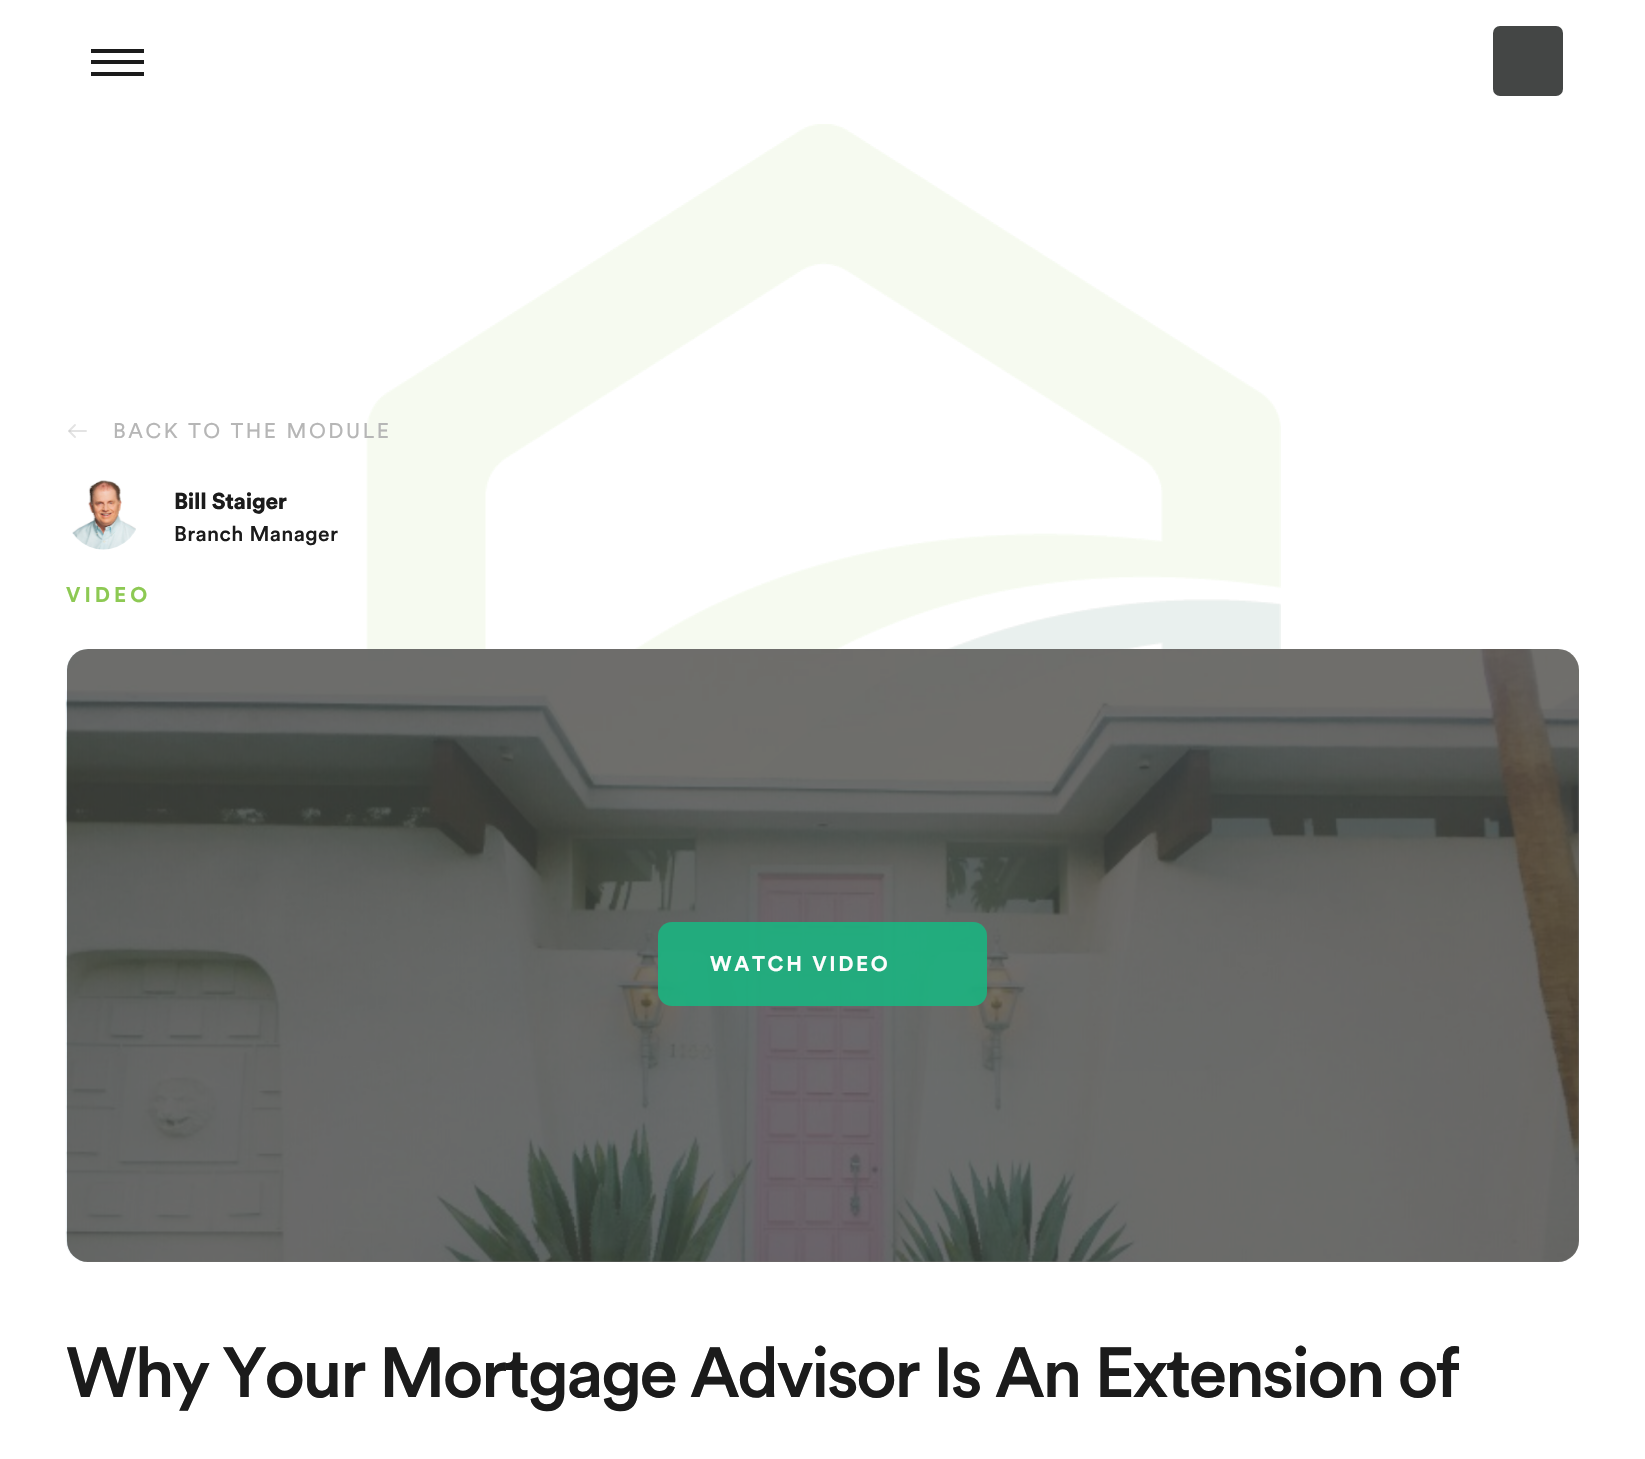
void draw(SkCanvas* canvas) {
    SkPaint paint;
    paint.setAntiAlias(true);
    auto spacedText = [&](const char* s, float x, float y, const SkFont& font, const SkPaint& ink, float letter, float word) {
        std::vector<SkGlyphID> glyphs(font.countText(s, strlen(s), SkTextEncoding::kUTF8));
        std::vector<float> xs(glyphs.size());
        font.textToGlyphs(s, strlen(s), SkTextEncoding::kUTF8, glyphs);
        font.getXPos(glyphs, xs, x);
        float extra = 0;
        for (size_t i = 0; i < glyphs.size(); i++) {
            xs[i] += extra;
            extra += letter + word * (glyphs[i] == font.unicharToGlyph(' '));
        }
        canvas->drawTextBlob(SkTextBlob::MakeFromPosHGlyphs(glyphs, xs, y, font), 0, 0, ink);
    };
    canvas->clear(0xFFFFFFFF);
    paint.setColor(0xFF1B1B1B);
    canvas->drawRect(SkRect::MakeXYWH(91, 49, 53, 4), paint);
    canvas->drawRect(SkRect::MakeXYWH(91, 60, 53, 4), paint);
    canvas->drawRect(SkRect::MakeXYWH(91, 72, 53, 4), paint);
    paint.setColor(0xFF444645);
    canvas->drawRoundRect(SkRect::MakeXYWH(1493, 26, 70, 70), 7, 7, paint);
    canvas->drawImageRect(SkImages::DeferredFromEncodedData(SkData::MakeFromFileName("img1.png")), SkRect::MakeXYWH(366, 124, 915, 947), SkSamplingOptions());
    paint.setStyle(SkPaint::kStroke_Style);
    paint.setStrokeWidth(1.9f);
    paint.setStrokeCap(SkPaint::kRound_Cap);
    paint.setStrokeJoin(SkPaint::kRound_Join);
    paint.setColor(0xFFE3E3E3);
    canvas->drawPath(SkPathBuilder().moveTo(86, 431).lineTo(69.5f, 431).detach(), paint);
    paint.setColor(0x66B9B9B9);
    canvas->drawPath(SkPathBuilder().moveTo(75, 425).lineTo(69, 431).lineTo(75, 437).detach(), paint);
    SkFont font1(fontMgr->matchFamilyStyle("Circular", SkFontStyle::Normal()), 21);
    font1.setSubpixel(true);
    paint.setStyle(SkPaint::kFill_Style);
    paint.setColor(0xFFB6B6B6);
    spacedText("BACK TO THE MODULE", 113, 438, font1, paint, 2.6f, 0);
    canvas->drawImageRect(SkImages::DeferredFromEncodedData(SkData::MakeFromFileName("img2.png")), SkRect::MakeXYWH(72, 480, 64, 70), SkSamplingOptions());
    SkFont font2(fontMgr->matchFamilyStyle("Circular", SkFontStyle(900, SkFontStyle::kNormal_Width, SkFontStyle::kUpright_Slant)), 22.75f);
    font2.setSubpixel(true);
    paint.setColor(0xFF1B1B1B);
    spacedText("Bill Staiger", 174, 509, font2, paint, -0.3f, 0);
    SkFont font3(fontMgr->matchFamilyStyle("Circular", SkFontStyle(500, SkFontStyle::kNormal_Width, SkFontStyle::kUpright_Slant)), 21);
    font3.setSubpixel(true);
    spacedText("Branch Manager", 174, 541, font3, paint, 0.4f, 0);
    SkFont font4(fontMgr->matchFamilyStyle("Circular", SkFontStyle::Bold()), 21);
    font4.setSubpixel(true);
    paint.setColor(0xFF8DC953);
    spacedText("VIDEO", 66, 602, font4, paint, 4, 0);
    canvas->drawImageRect(SkImages::DeferredFromEncodedData(SkData::MakeFromFileName("img3.png")), SkRect::MakeXYWH(65, 649, 1514, 613), SkSamplingOptions());
    paint.setColor(0xB537342F);
    canvas->drawRoundRect(SkRect::MakeXYWH(67, 649, 1512, 613), 21, 21, paint);
    paint.setColor(0xE61BB280);
    canvas->drawRoundRect(SkRect::MakeXYWH(658, 922, 329, 84), 14, 14, paint);
    paint.setColor(0xFFFDFDFD);
    spacedText("WATCH VIDEO", 710, 971, font4, paint, 2.6f, 0);
    SkFont font5(fontMgr->matchFamilyStyle("Circular", SkFontStyle(500, SkFontStyle::kNormal_Width, SkFontStyle::kUpright_Slant)), 70);
    font5.setSubpixel(true);
    paint.setColor(0xFF1B1B1B);
    spacedText("Why Your Mortgage Advisor Is An Extension of", 66, 1397, font5, paint, -2.6f, 0);
}
